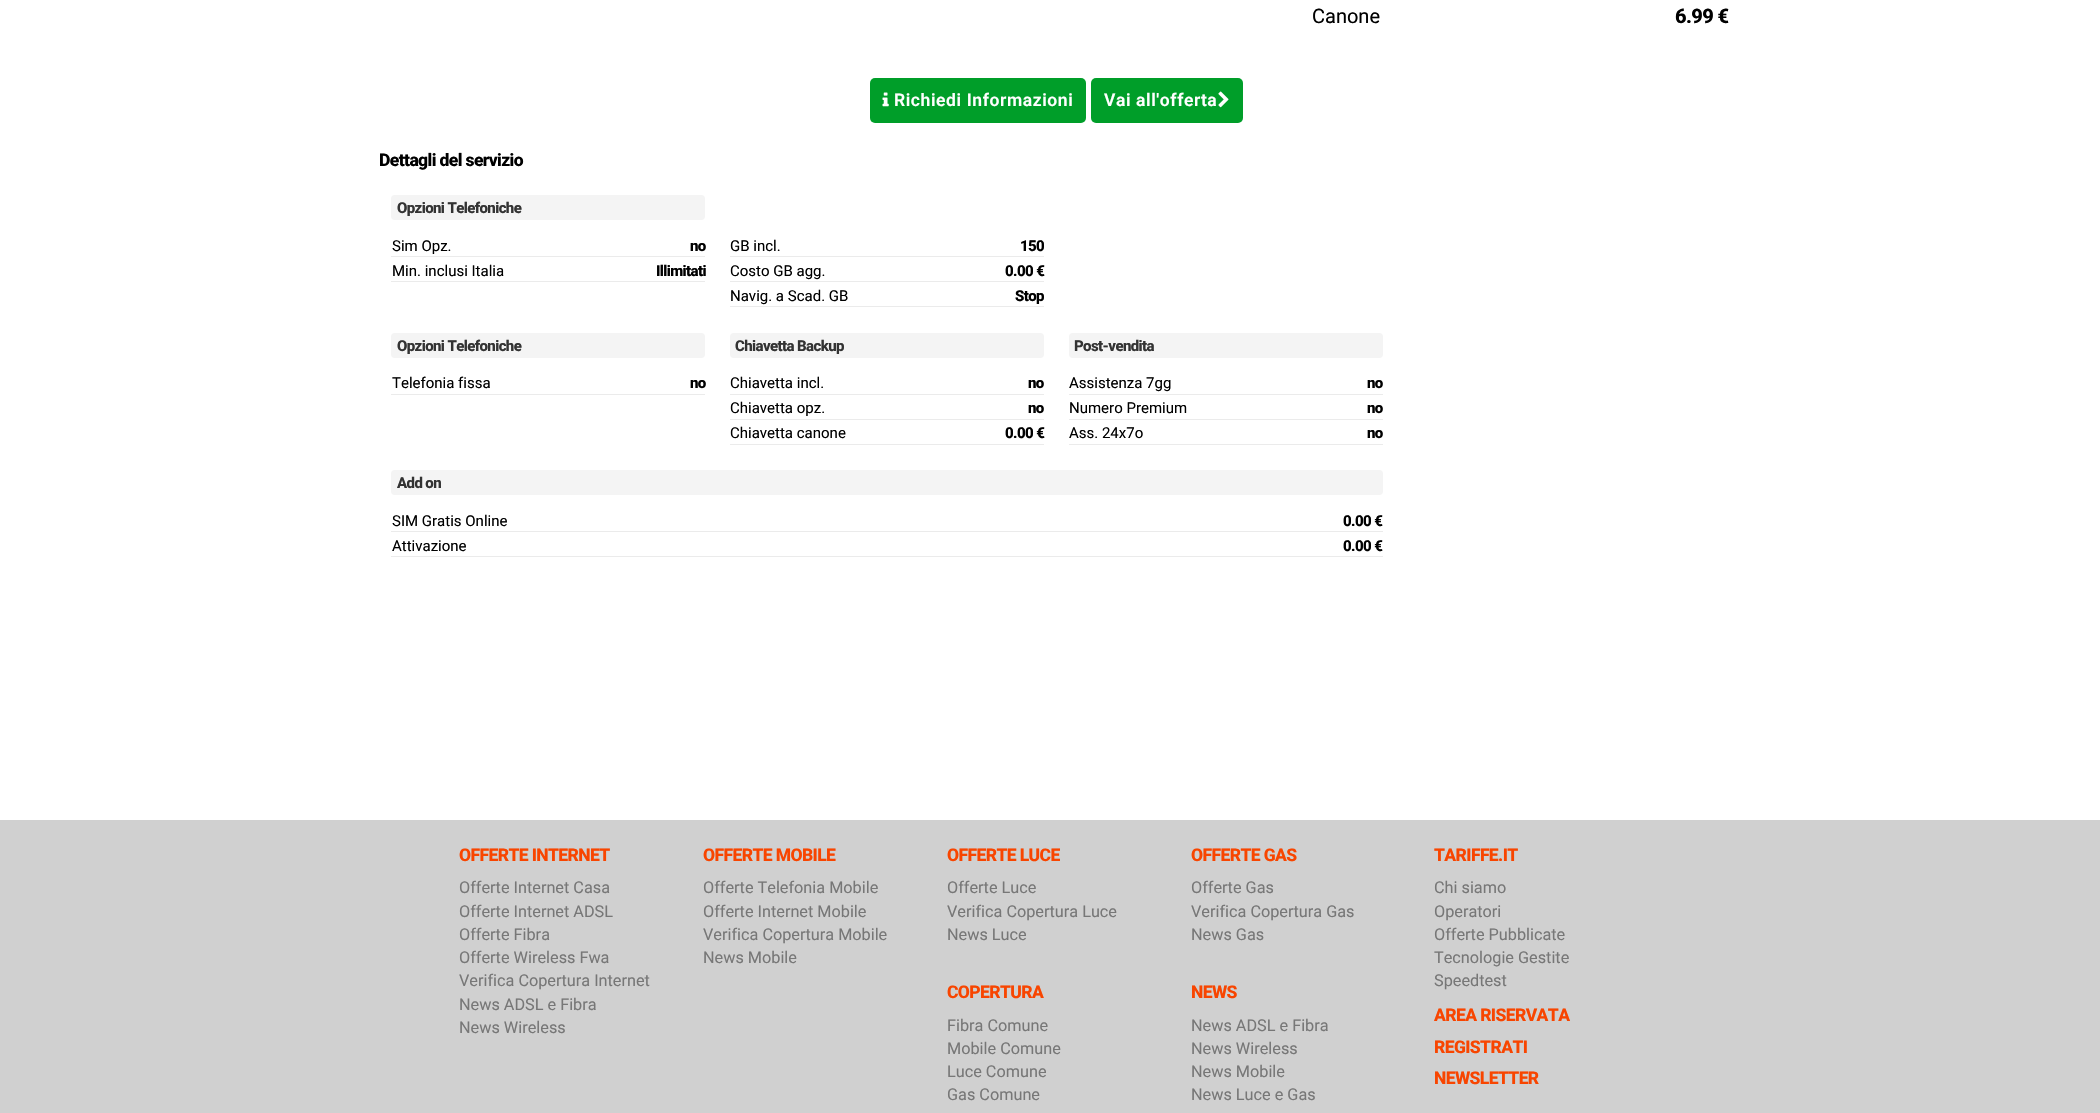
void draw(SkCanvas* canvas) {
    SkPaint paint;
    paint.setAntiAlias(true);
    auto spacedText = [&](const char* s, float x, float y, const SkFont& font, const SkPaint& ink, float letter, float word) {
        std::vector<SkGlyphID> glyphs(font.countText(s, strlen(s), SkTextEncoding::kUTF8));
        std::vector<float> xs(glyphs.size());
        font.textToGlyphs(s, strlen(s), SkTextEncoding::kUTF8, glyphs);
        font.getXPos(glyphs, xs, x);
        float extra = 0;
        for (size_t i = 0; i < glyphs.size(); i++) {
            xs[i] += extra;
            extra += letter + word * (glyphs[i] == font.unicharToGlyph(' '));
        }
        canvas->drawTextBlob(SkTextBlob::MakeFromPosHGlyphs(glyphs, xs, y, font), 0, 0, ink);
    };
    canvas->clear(0xFFFFFFFF);
    SkFont font1(fontMgr->matchFamilyStyle("Roboto", SkFontStyle::Normal()), 20);
    font1.setSubpixel(true);
    paint.setColor(0xFF000000);
    canvas->drawString("Canone", 1312, 23, font1, paint);
    SkFont font2(fontMgr->matchFamilyStyle("Roboto", SkFontStyle(800, SkFontStyle::kNormal_Width, SkFontStyle::kUpright_Slant)), 20);
    font2.setSubpixel(true);
    spacedText("6.99 €", 1675, 23, font2, paint, -0.6f, 0);
    paint.setColor(0xFF009E29);
    canvas->drawRoundRect(SkRect::MakeXYWH(870, 78, 216, 45), 5, 5, paint);
    canvas->drawImageRect(SkImages::DeferredFromEncodedData(SkData::MakeFromFileName("img1.png")), SkRect::MakeXYWH(882, 92, 7, 15), SkSamplingOptions());
    SkFont font3(fontMgr->matchFamilyStyle("Roboto", SkFontStyle(600, SkFontStyle::kNormal_Width, SkFontStyle::kUpright_Slant)), 17.5f);
    font3.setSubpixel(true);
    paint.setColor(0xFFFFFFFF);
    spacedText("Richiedi Informazioni", 894, 106, font3, paint, 0.6f, 0);
    paint.setColor(0xFF009E29);
    canvas->drawRoundRect(SkRect::MakeXYWH(1091, 78, 152, 45), 5, 5, paint);
    paint.setColor(0xFFFFFFFF);
    spacedText("Vai all'offerta", 1104, 106, font3, paint, 0.6f, 0);
    canvas->drawImageRect(SkImages::DeferredFromEncodedData(SkData::MakeFromFileName("img2.png")), SkRect::MakeXYWH(1218, 91, 11, 17), SkSamplingOptions());
    SkFont font4(fontMgr->matchFamilyStyle("Roboto", SkFontStyle(800, SkFontStyle::kNormal_Width, SkFontStyle::kUpright_Slant)), 17.5f);
    font4.setSubpixel(true);
    paint.setColor(0xFF000000);
    spacedText("Dettagli del servizio", 379, 166, font4, paint, -0.6f, 0);
    paint.setColor(0xFFF4F4F4);
    canvas->drawRoundRect(SkRect::MakeXYWH(391, 195, 314, 25), 4, 4, paint);
    SkFont font5(fontMgr->matchFamilyStyle("Roboto", SkFontStyle(800, SkFontStyle::kNormal_Width, SkFontStyle::kUpright_Slant)), 15);
    font5.setSubpixel(true);
    paint.setColor(0xFF333333);
    spacedText("Opzioni Telefoniche", 397, 213, font5, paint, -0.6f, 0);
    paint.setColor(0xFFEBEBEB);
    canvas->drawRect(SkRect::MakeXYWH(391, 256, 314, 1), paint);
    SkFont font6(fontMgr->matchFamilyStyle("Roboto", SkFontStyle::Normal()), 15);
    font6.setSubpixel(true);
    paint.setColor(0xFF000000);
    canvas->drawString("Sim Opz.", 392, 251, font6, paint);
    spacedText("no", 690, 251, font5, paint, -0.6f, 0);
    paint.setColor(0xFFEBEBEB);
    canvas->drawRect(SkRect::MakeXYWH(391, 281, 314, 1), paint);
    paint.setColor(0xFF000000);
    canvas->drawString("Min. inclusi Italia", 392, 276, font6, paint);
    spacedText("Illimitati", 656, 276, font5, paint, -0.6f, 0);
    paint.setColor(0xFFEBEBEB);
    canvas->drawRect(SkRect::MakeXYWH(730, 256, 314, 1), paint);
    paint.setColor(0xFF000000);
    canvas->drawString("GB incl.", 730, 251, font6, paint);
    spacedText("150", 1020, 251, font5, paint, -0.6f, 0);
    paint.setColor(0xFFEBEBEB);
    canvas->drawRect(SkRect::MakeXYWH(730, 281, 314, 1), paint);
    paint.setColor(0xFF000000);
    canvas->drawString("Costo GB agg.", 730, 276, font6, paint);
    spacedText("0.00 €", 1005, 276, font5, paint, -0.6f, 0);
    paint.setColor(0xFFEBEBEB);
    canvas->drawRect(SkRect::MakeXYWH(730, 306, 314, 1), paint);
    paint.setColor(0xFF000000);
    canvas->drawString("Navig. a Scad. GB", 730, 301, font6, paint);
    spacedText("Stop", 1015, 301, font5, paint, -0.6f, 0);
    paint.setColor(0xFFF4F4F4);
    canvas->drawRoundRect(SkRect::MakeXYWH(391, 333, 314, 25), 4, 4, paint);
    paint.setColor(0xFF333333);
    spacedText("Opzioni Telefoniche", 397, 351, font5, paint, -0.6f, 0);
    paint.setColor(0xFFEBEBEB);
    canvas->drawRect(SkRect::MakeXYWH(391, 394, 314, 1), paint);
    paint.setColor(0xFF000000);
    canvas->drawString("Telefonia fissa", 392, 388, font6, paint);
    spacedText("no", 690, 388, font5, paint, -0.6f, 0);
    paint.setColor(0xFFF4F4F4);
    canvas->drawRoundRect(SkRect::MakeXYWH(730, 333, 314, 25), 4, 4, paint);
    paint.setColor(0xFF333333);
    spacedText("Chiavetta Backup", 735, 351, font5, paint, -0.6f, 0);
    paint.setColor(0xFFEBEBEB);
    canvas->drawRect(SkRect::MakeXYWH(730, 394, 314, 1), paint);
    paint.setColor(0xFF000000);
    canvas->drawString("Chiavetta incl.", 730, 388, font6, paint);
    spacedText("no", 1028, 388, font5, paint, -0.6f, 0);
    paint.setColor(0xFFEBEBEB);
    canvas->drawRect(SkRect::MakeXYWH(730, 419, 314, 1), paint);
    paint.setColor(0xFF000000);
    canvas->drawString("Chiavetta opz.", 730, 413, font6, paint);
    spacedText("no", 1028, 413, font5, paint, -0.6f, 0);
    paint.setColor(0xFFEBEBEB);
    canvas->drawRect(SkRect::MakeXYWH(730, 444, 314, 1), paint);
    paint.setColor(0xFF000000);
    canvas->drawString("Chiavetta canone", 730, 438, font6, paint);
    spacedText("0.00 €", 1005, 438, font5, paint, -0.6f, 0);
    paint.setColor(0xFFF4F4F4);
    canvas->drawRoundRect(SkRect::MakeXYWH(1069, 333, 314, 25), 4, 4, paint);
    paint.setColor(0xFF333333);
    spacedText("Post-vendita", 1074, 351, font5, paint, -0.6f, 0);
    paint.setColor(0xFFEBEBEB);
    canvas->drawRect(SkRect::MakeXYWH(1069, 394, 314, 1), paint);
    paint.setColor(0xFF000000);
    canvas->drawString("Assistenza 7gg", 1069, 388, font6, paint);
    spacedText("no", 1367, 388, font5, paint, -0.6f, 0);
    paint.setColor(0xFFEBEBEB);
    canvas->drawRect(SkRect::MakeXYWH(1069, 419, 314, 1), paint);
    paint.setColor(0xFF000000);
    canvas->drawString("Numero Premium", 1069, 413, font6, paint);
    spacedText("no", 1367, 413, font5, paint, -0.6f, 0);
    paint.setColor(0xFFEBEBEB);
    canvas->drawRect(SkRect::MakeXYWH(1069, 444, 314, 1), paint);
    paint.setColor(0xFF000000);
    canvas->drawString("Ass. 24x7o", 1069, 438, font6, paint);
    spacedText("no", 1367, 438, font5, paint, -0.6f, 0);
    paint.setColor(0xFFF4F4F4);
    canvas->drawRoundRect(SkRect::MakeXYWH(391, 470, 992, 25), 4, 4, paint);
    paint.setColor(0xFF333333);
    spacedText("Add on", 397, 488, font5, paint, -0.6f, 0);
    paint.setColor(0xFFEBEBEB);
    canvas->drawRect(SkRect::MakeXYWH(391, 531, 992, 1), paint);
    paint.setColor(0xFF000000);
    canvas->drawString("SIM Gratis Online", 392, 526, font6, paint);
    spacedText("0.00 €", 1343, 526, font5, paint, -0.6f, 0);
    paint.setColor(0xFFEBEBEB);
    canvas->drawRect(SkRect::MakeXYWH(391, 556, 992, 1), paint);
    paint.setColor(0xFF000000);
    canvas->drawString("Attivazione", 392, 551, font6, paint);
    spacedText("0.00 €", 1343, 551, font5, paint, -0.6f, 0);
    paint.setColor(0xFFD0D0D0);
    canvas->drawRect(SkRect::MakeXYWH(0, 820, 2100, 293), paint);
    paint.setColor(0xFFF84500);
    spacedText("OFFERTE INTERNET", 459, 861, font4, paint, -0.6f, 0);
    SkFont font7(fontMgr->matchFamilyStyle("Roboto", SkFontStyle::Normal()), 16.25f);
    font7.setSubpixel(true);
    paint.setColor(0xFF777777);
    canvas->drawString("Offerte Internet Casa", 459, 893, font7, paint);
    canvas->drawString("Offerte Internet ADSL", 459, 917, font7, paint);
    canvas->drawString("Offerte Fibra", 459, 940, font7, paint);
    canvas->drawString("Offerte Wireless Fwa", 459, 963, font7, paint);
    canvas->drawString("Verifica Copertura Internet", 459, 986, font7, paint);
    canvas->drawString("News ADSL e Fibra", 459, 1010, font7, paint);
    canvas->drawString("News Wireless", 459, 1033, font7, paint);
    paint.setColor(0xFFF84500);
    spacedText("OFFERTE MOBILE", 703, 861, font4, paint, -0.6f, 0);
    paint.setColor(0xFF777777);
    canvas->drawString("Offerte Telefonia Mobile", 703, 893, font7, paint);
    canvas->drawString("Offerte Internet Mobile", 703, 917, font7, paint);
    canvas->drawString("Verifica Copertura Mobile", 703, 940, font7, paint);
    canvas->drawString("News Mobile", 703, 963, font7, paint);
    paint.setColor(0xFFF84500);
    spacedText("OFFERTE LUCE", 947, 861, font4, paint, -0.6f, 0);
    paint.setColor(0xFF777777);
    canvas->drawString("Offerte Luce", 947, 893, font7, paint);
    canvas->drawString("Verifica Copertura Luce", 947, 917, font7, paint);
    canvas->drawString("News Luce", 947, 940, font7, paint);
    paint.setColor(0xFFF84500);
    spacedText("COPERTURA", 947, 998, font4, paint, -0.6f, 0);
    paint.setColor(0xFF777777);
    canvas->drawString("Fibra Comune", 947, 1031, font7, paint);
    canvas->drawString("Mobile Comune", 947, 1054, font7, paint);
    canvas->drawString("Luce Comune", 947, 1077, font7, paint);
    canvas->drawString("Gas Comune", 947, 1100, font7, paint);
    paint.setColor(0xFFF84500);
    spacedText("OFFERTE GAS", 1191, 861, font4, paint, -0.6f, 0);
    paint.setColor(0xFF777777);
    canvas->drawString("Offerte Gas", 1191, 893, font7, paint);
    canvas->drawString("Verifica Copertura Gas", 1191, 917, font7, paint);
    canvas->drawString("News Gas", 1191, 940, font7, paint);
    paint.setColor(0xFFF84500);
    spacedText("NEWS", 1191, 998, font4, paint, -0.6f, 0);
    paint.setColor(0xFF777777);
    canvas->drawString("News ADSL e Fibra", 1191, 1031, font7, paint);
    canvas->drawString("News Wireless", 1191, 1054, font7, paint);
    canvas->drawString("News Mobile", 1191, 1077, font7, paint);
    canvas->drawString("News Luce e Gas", 1191, 1100, font7, paint);
    paint.setColor(0xFFF84500);
    spacedText("TARIFFE.IT", 1434, 861, font4, paint, -0.6f, 0);
    paint.setColor(0xFF777777);
    canvas->drawString("Chi siamo", 1434, 893, font7, paint);
    canvas->drawString("Operatori", 1434, 917, font7, paint);
    canvas->drawString("Offerte Pubblicate", 1434, 940, font7, paint);
    canvas->drawString("Tecnologie Gestite", 1434, 963, font7, paint);
    canvas->drawString("Speedtest", 1434, 986, font7, paint);
    paint.setColor(0xFFF84500);
    spacedText("AREA RISERVATA", 1434, 1021, font4, paint, -0.6f, 0);
    spacedText("REGISTRATI", 1434, 1053, font4, paint, -0.6f, 0);
    spacedText("NEWSLETTER", 1434, 1084, font4, paint, -0.6f, 0);
}
